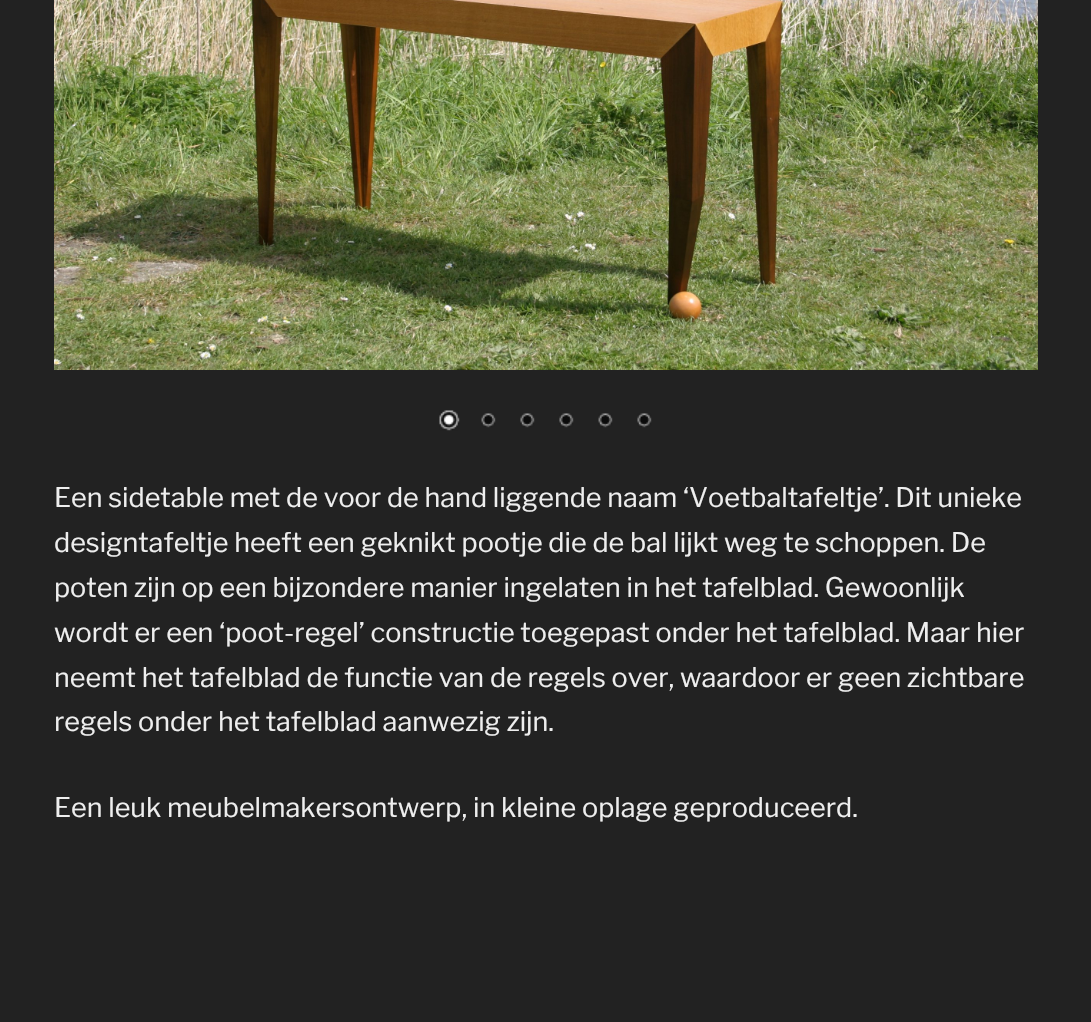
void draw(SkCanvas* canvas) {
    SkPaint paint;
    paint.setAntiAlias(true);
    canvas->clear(0xFF222222);
    canvas->drawImageRect(SkImages::DeferredFromEncodedData(SkData::MakeFromFileName("img1.png")), SkRect::MakeXYWH(54, 0, 984, 370), SkSamplingOptions());
    canvas->drawImageRect(SkImages::DeferredFromEncodedData(SkData::MakeFromFileName("img2.png")), SkRect::MakeXYWH(439, 410, 21, 21), SkSamplingOptions());
    canvas->drawImageRect(SkImages::DeferredFromEncodedData(SkData::MakeFromFileName("img3.png")), SkRect::MakeXYWH(481, 413, 15, 15), SkSamplingOptions());
    canvas->drawImageRect(SkImages::DeferredFromEncodedData(SkData::MakeFromFileName("img4.png")), SkRect::MakeXYWH(520, 413, 15, 15), SkSamplingOptions());
    canvas->drawImageRect(SkImages::DeferredFromEncodedData(SkData::MakeFromFileName("img4.png")), SkRect::MakeXYWH(559, 413, 15, 15), SkSamplingOptions());
    canvas->drawImageRect(SkImages::DeferredFromEncodedData(SkData::MakeFromFileName("img3.png")), SkRect::MakeXYWH(598, 413, 15, 15), SkSamplingOptions());
    canvas->drawImageRect(SkImages::DeferredFromEncodedData(SkData::MakeFromFileName("img4.png")), SkRect::MakeXYWH(637, 413, 15, 15), SkSamplingOptions());
    SkFont font1(fontMgr->matchFamilyStyle("Libre Franklin", SkFontStyle(100, SkFontStyle::kNormal_Width, SkFontStyle::kUpright_Slant)), 27);
    font1.setSubpixel(true);
    paint.setColor(0xFFEEEEEE);
    canvas->drawString("Een sidetable met de voor de hand liggende naam ‘Voetbaltafeltje’. Dit unieke", 54, 507, font1, paint);
    canvas->drawString("designtafeltje heeft een geknikt pootje die de bal lijkt weg te schoppen. De", 54, 552, font1, paint);
    canvas->drawString("poten zijn op een bijzondere manier ingelaten in het tafelblad. Gewoonlijk", 54, 597, font1, paint);
    canvas->drawString("wordt er een ‘poot-regel’ constructie toegepast onder het tafelblad. Maar hier", 54, 642, font1, paint);
    canvas->drawString("neemt het tafelblad de functie van de regels over, waardoor er geen zichtbare", 54, 687, font1, paint);
    canvas->drawString("regels onder het tafelblad aanwezig zijn.", 54, 731, font1, paint);
    canvas->drawString("Een leuk meubelmakersontwerp, in kleine oplage geproduceerd.", 54, 817, font1, paint);
}
